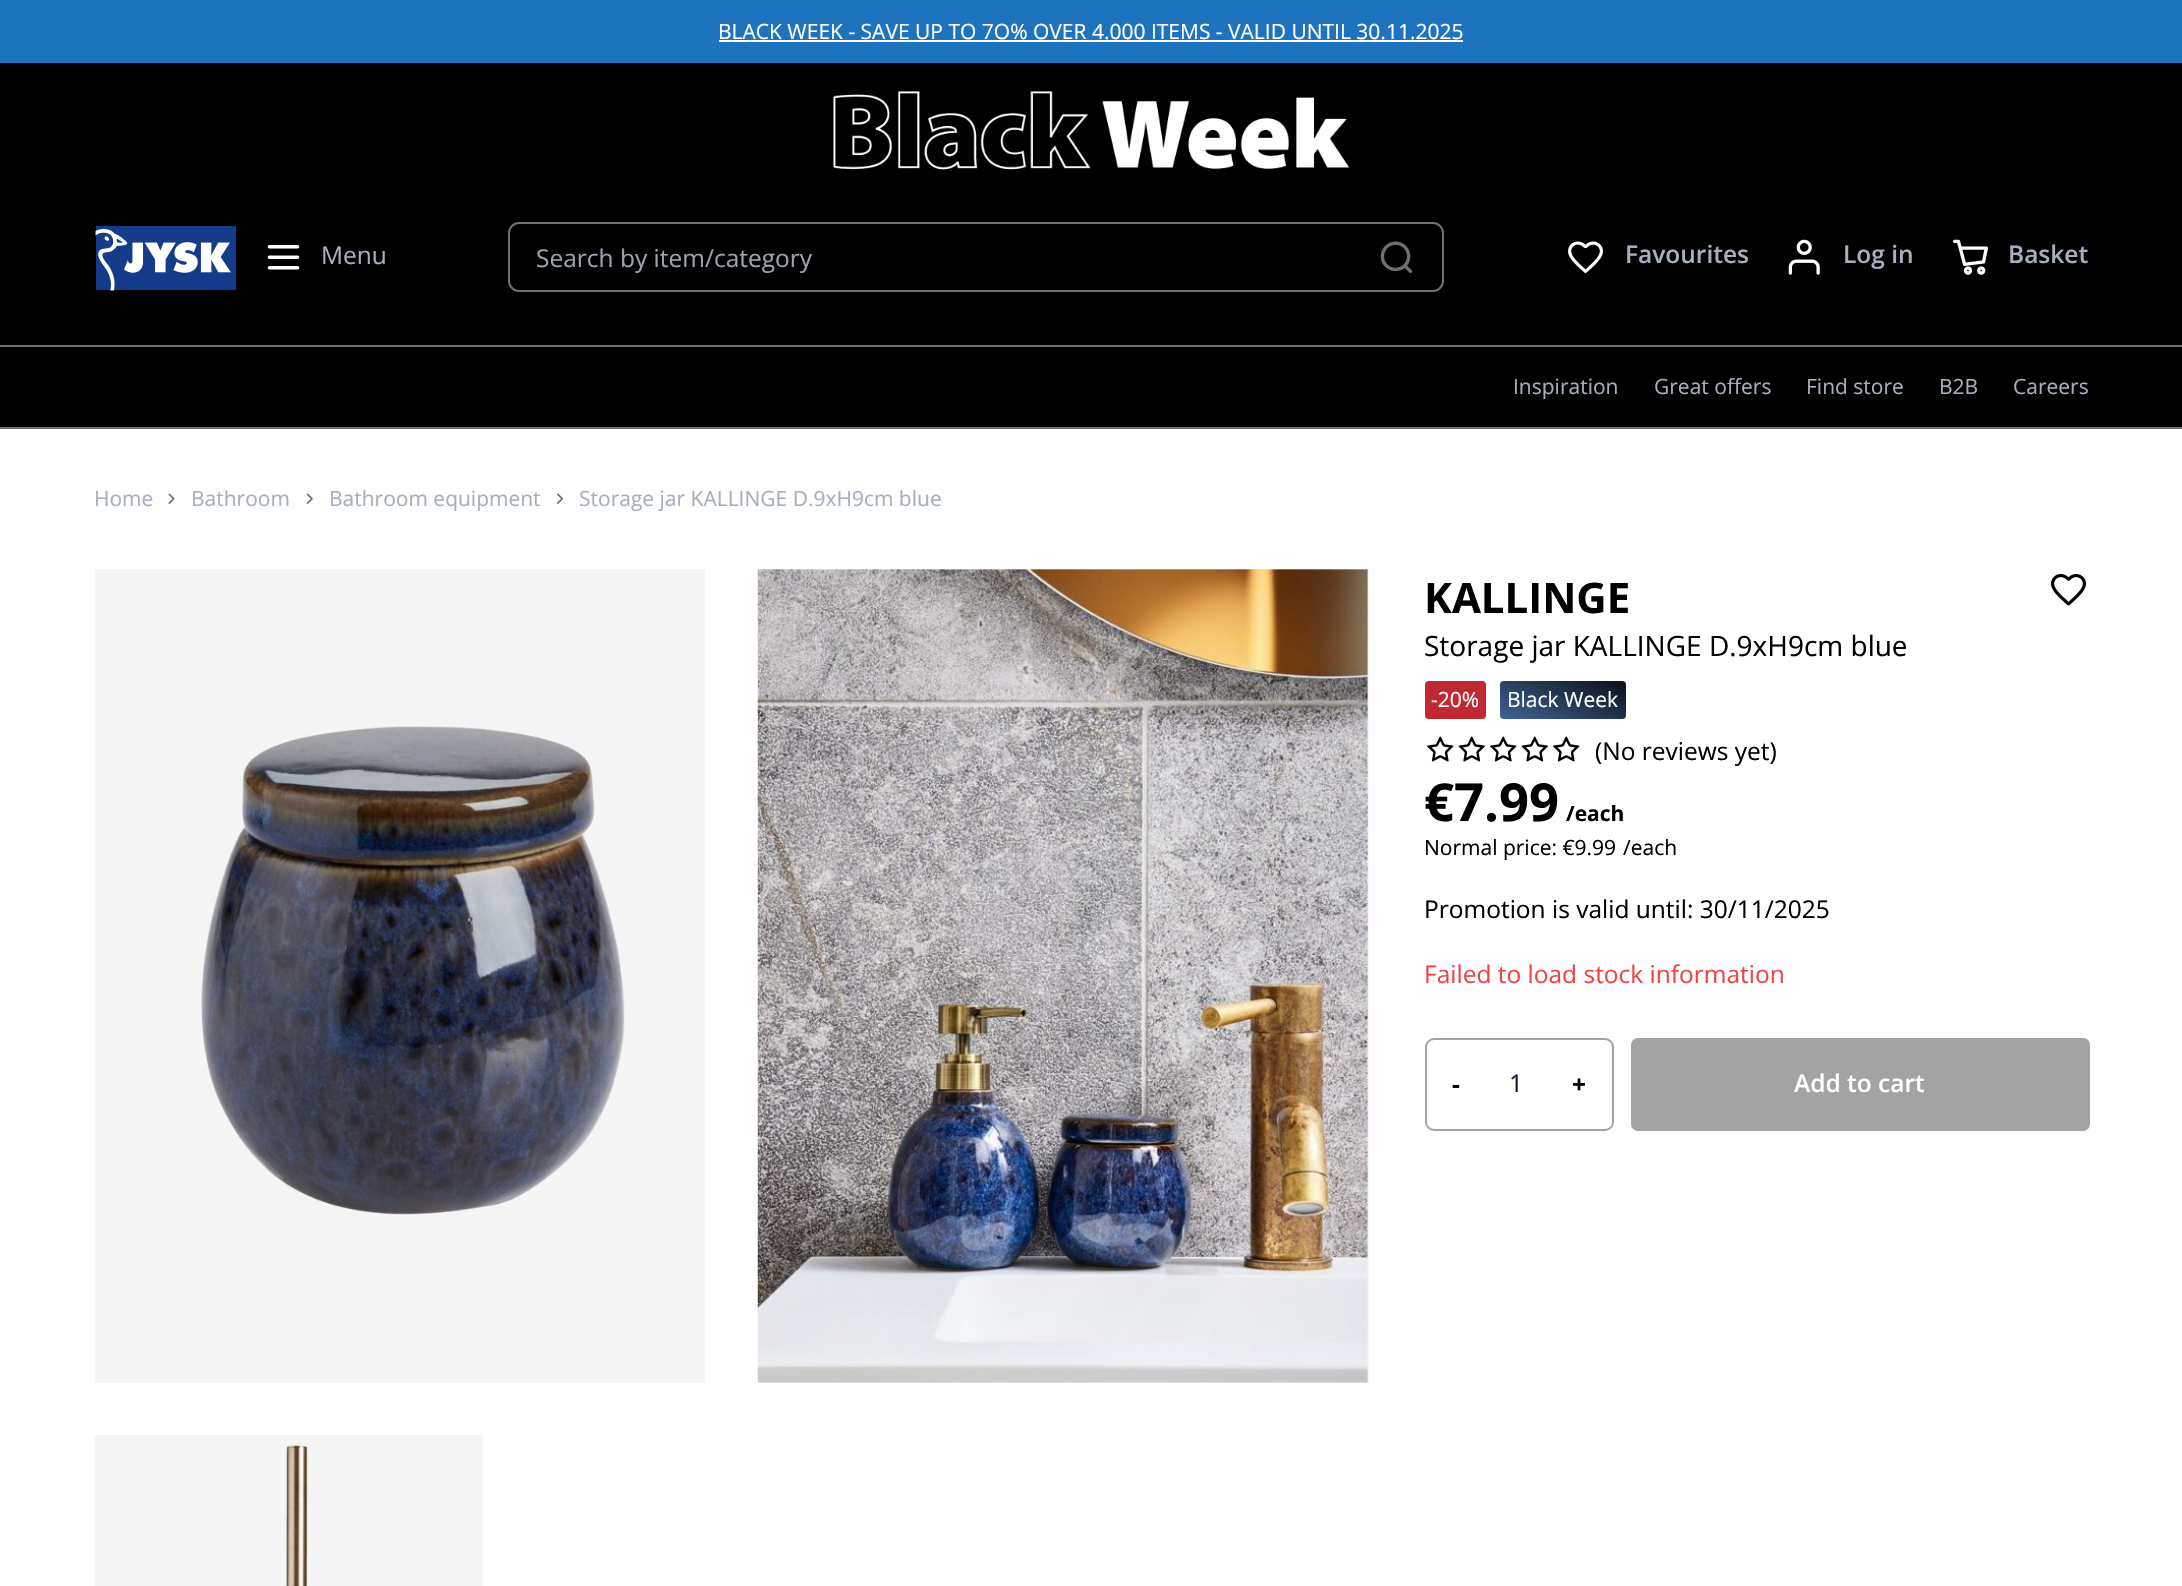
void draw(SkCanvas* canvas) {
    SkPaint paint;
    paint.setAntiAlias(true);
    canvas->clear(0xFFFFFFFF);
    paint.setColor(0xFF1E73BE);
    canvas->drawRect(SkRect::MakeXYWH(0, 0, 2182, 63), paint);
    SkFont font1(fontMgr->matchFamilyStyle("Open Sans", SkFontStyle::Normal()), 21);
    font1.setSubpixel(true);
    paint.setColor(0xFFFFFFFF);
    canvas->drawString("BLACK WEEK - SAVE UP TO 7O% OVER 4.000 ITEMS - VALID UNTIL 30.11.2025", 718, 39, font1, paint);
    canvas->drawRect(SkRect::MakeXYWH(719, 40, 744, 2), paint);
    paint.setColor(0xFF000000);
    canvas->drawRect(SkRect::MakeXYWH(0, 63, 2182, 282), paint);
    canvas->drawImageRect(SkImages::DeferredFromEncodedData(SkData::MakeFromFileName("img1.png")), SkRect::MakeXYWH(833, 91, 517, 79), SkSamplingOptions());
    canvas->drawImageRect(SkImages::DeferredFromEncodedData(SkData::MakeFromFileName("img2.png")), SkRect::MakeXYWH(95, 226, 141, 65), SkSamplingOptions());
    canvas->drawImageRect(SkImages::DeferredFromEncodedData(SkData::MakeFromFileName("img3.png")), SkRect::MakeXYWH(267, 245, 33, 25), SkSamplingOptions());
    SkFont font2(fontMgr->matchFamilyStyle("Open Sans", SkFontStyle::Normal()), 24.5f);
    font2.setSubpixel(true);
    paint.setColor(0xFFA7AEBE);
    canvas->drawString("Menu", 321, 264, font2, paint);
    paint.setStyle(SkPaint::kStroke_Style);
    paint.setStrokeWidth(2);
    paint.setColor(0xFF707070);
    canvas->drawRoundRect(SkRect::MakeXYWH(509, 223, 934, 68), 10, 10, paint);
    paint.setStyle(SkPaint::kFill_Style);
    paint.setColor(0xFF9CA3AF);
    canvas->drawString("Search by item/category", 536, 267, font2, paint);
    canvas->drawImageRect(SkImages::DeferredFromEncodedData(SkData::MakeFromFileName("img4.png")), SkRect::MakeXYWH(1380, 241, 33, 32), SkSamplingOptions());
    canvas->drawImageRect(SkImages::DeferredFromEncodedData(SkData::MakeFromFileName("img5.png")), SkRect::MakeXYWH(1568, 241, 35, 32), SkSamplingOptions());
    SkFont font3(fontMgr->matchFamilyStyle("Open Sans", SkFontStyle(600, SkFontStyle::kNormal_Width, SkFontStyle::kUpright_Slant)), 24.5f);
    font3.setSubpixel(true);
    paint.setColor(0xFFA7AEBE);
    canvas->drawString("Favourites", 1625, 263, font3, paint);
    canvas->drawImageRect(SkImages::DeferredFromEncodedData(SkData::MakeFromFileName("img6.png")), SkRect::MakeXYWH(1788, 239, 32, 36), SkSamplingOptions());
    canvas->drawString("Log in", 1843, 263, font3, paint);
    canvas->drawImageRect(SkImages::DeferredFromEncodedData(SkData::MakeFromFileName("img7.png")), SkRect::MakeXYWH(1953, 239, 35, 36), SkSamplingOptions());
    canvas->drawString("Basket", 2008, 263, font3, paint);
    paint.setColor(0xFF000000);
    canvas->drawRect(SkRect::MakeXYWH(0, 347, 2182, 80), paint);
    paint.setColor(0xFF707070);
    canvas->drawRect(SkRect::MakeXYWH(0, 345, 2182, 2), paint);
    canvas->drawRect(SkRect::MakeXYWH(0, 427, 2182, 2), paint);
    paint.setColor(0xFFA7AEBE);
    canvas->drawString("Inspiration", 1513, 394, font1, paint);
    canvas->drawString("Great offers", 1654, 394, font1, paint);
    canvas->drawString("Find store", 1806, 394, font1, paint);
    canvas->drawString("B2B", 1939, 394, font1, paint);
    canvas->drawString("Careers", 2013, 394, font1, paint);
    canvas->drawString("Home", 94, 506, font1, paint);
    canvas->drawImageRect(SkImages::DeferredFromEncodedData(SkData::MakeFromFileName("img8.png")), SkRect::MakeXYWH(168, 493, 7, 11), SkSamplingOptions());
    canvas->drawString("Bathroom", 191, 506, font1, paint);
    canvas->drawImageRect(SkImages::DeferredFromEncodedData(SkData::MakeFromFileName("img9.png")), SkRect::MakeXYWH(306, 493, 7, 11), SkSamplingOptions());
    canvas->drawString("Bathroom equipment", 329, 506, font1, paint);
    canvas->drawImageRect(SkImages::DeferredFromEncodedData(SkData::MakeFromFileName("img10.png")), SkRect::MakeXYWH(557, 493, 6, 11), SkSamplingOptions());
    canvas->drawString("Storage jar KALLINGE D.9xH9cm blue", 579, 506, font1, paint);
    paint.setColor(0xFFF5F5F5);
    canvas->drawRect(SkRect::MakeXYWH(95, 569, 610, 814), paint);
    canvas->drawImageRect(SkImages::DeferredFromEncodedData(SkData::MakeFromFileName("img11.png")), SkRect::MakeXYWH(198, 725, 427, 491), SkSamplingOptions());
    canvas->drawRect(SkRect::MakeXYWH(758, 569, 611, 814), paint);
    canvas->drawImageRect(SkImages::DeferredFromEncodedData(SkData::MakeFromFileName("img12.png")), SkRect::MakeXYWH(757, 569, 611, 814), SkSamplingOptions());
    canvas->drawRect(SkRect::MakeXYWH(95, 1435, 388, 151), paint);
    canvas->drawImageRect(SkImages::DeferredFromEncodedData(SkData::MakeFromFileName("img13.png")), SkRect::MakeXYWH(94, 1436, 217, 150), SkSamplingOptions());
    SkFont font4(fontMgr->matchFamilyStyle("Open Sans", SkFontStyle::Bold()), 42);
    font4.setSubpixel(true);
    paint.setColor(0xFF000000);
    canvas->drawString("KALLINGE", 1424, 613, font4, paint);
    SkFont font5(fontMgr->matchFamilyStyle("Open Sans", SkFontStyle::Normal()), 28);
    font5.setSubpixel(true);
    canvas->drawString("Storage jar KALLINGE D.9xH9cm blue", 1424, 656, font5, paint);
    canvas->drawImageRect(SkImages::DeferredFromEncodedData(SkData::MakeFromFileName("img14.png")), SkRect::MakeXYWH(2051, 574, 35, 32), SkSamplingOptions());
    paint.setColor(0xFFC02931);
    canvas->drawRoundRect(SkRect::MakeXYWH(1425, 681, 61, 38), 4, 4, paint);
    paint.setColor(0xFFFFFFFF);
    canvas->drawString("-20%", 1431, 707, font1, paint);
    {
        const SkColor colors[] = {0xFF416496, 0xFF0B0F16};
        const float stops[] = {0, 1};
        const SkPoint ends[] = {{1544, 740}, {1581, 660}};
        paint.setShader(SkGradientShader::MakeLinear(ends, colors, stops, 2, SkTileMode::kClamp));
        paint.setAlpha(255);
    }
    canvas->drawRoundRect(SkRect::MakeXYWH(1500, 681, 126, 38), 4, 4, paint);
    paint.setShader(nullptr);
    paint.setColor(0xFFFFFFFF);
    canvas->drawString("Black Week", 1507, 707, font1, paint);
    canvas->drawImageRect(SkImages::DeferredFromEncodedData(SkData::MakeFromFileName("img15.png")), SkRect::MakeXYWH(1427, 736, 27, 26), SkSamplingOptions());
    canvas->drawImageRect(SkImages::DeferredFromEncodedData(SkData::MakeFromFileName("img16.png")), SkRect::MakeXYWH(1458, 736, 27, 26), SkSamplingOptions());
    canvas->drawImageRect(SkImages::DeferredFromEncodedData(SkData::MakeFromFileName("img15.png")), SkRect::MakeXYWH(1490, 736, 27, 26), SkSamplingOptions());
    canvas->drawImageRect(SkImages::DeferredFromEncodedData(SkData::MakeFromFileName("img16.png")), SkRect::MakeXYWH(1521, 736, 27, 26), SkSamplingOptions());
    canvas->drawImageRect(SkImages::DeferredFromEncodedData(SkData::MakeFromFileName("img15.png")), SkRect::MakeXYWH(1553, 736, 27, 26), SkSamplingOptions());
    paint.setColor(0xFF000000);
    canvas->drawString("(No reviews yet)", 1595, 760, font2, paint);
    SkFont font6(fontMgr->matchFamilyStyle("Open Sans", SkFontStyle::Bold()), 52.5f);
    font6.setSubpixel(true);
    canvas->drawString("€7.99", 1424, 821, font6, paint);
    SkFont font7(fontMgr->matchFamilyStyle("Open Sans", SkFontStyle::Bold()), 21);
    font7.setSubpixel(true);
    canvas->drawString("/each", 1566, 821, font7, paint);
    canvas->drawString("Normal price: €9.99", 1424, 855, font1, paint);
    canvas->drawString("/each", 1623, 855, font1, paint);
    canvas->drawString("Promotion is valid until: 30/11/2025", 1424, 918, font2, paint);
    paint.setColor(0xFFEF4444);
    canvas->drawString("Failed to load stock information", 1424, 983, font2, paint);
    paint.setStyle(SkPaint::kStroke_Style);
    paint.setColor(0xFFA3A3A3);
    canvas->drawRoundRect(SkRect::MakeXYWH(1426, 1039, 187, 91), 8, 8, paint);
    SkFont font8(fontMgr->matchFamilyStyle("Open Sans", SkFontStyle::Bold()), 24.5f);
    font8.setSubpixel(true);
    paint.setStyle(SkPaint::kFill_Style);
    paint.setColor(0xFF000000);
    canvas->drawString("-", 1452, 1093, font8, paint);
    paint.setColor(0xFF111827);
    canvas->drawString("1", 1509, 1092, font2, paint);
    paint.setColor(0xFF000000);
    canvas->drawString("+", 1572, 1093, font8, paint);
    paint.setColor(0xFFA3A3A3);
    canvas->drawRoundRect(SkRect::MakeXYWH(1631, 1038, 459, 93), 7, 7, paint);
    paint.setColor(0xFFFFFFFF);
    canvas->drawString("Add to cart", 1794, 1092, font3, paint);
}
